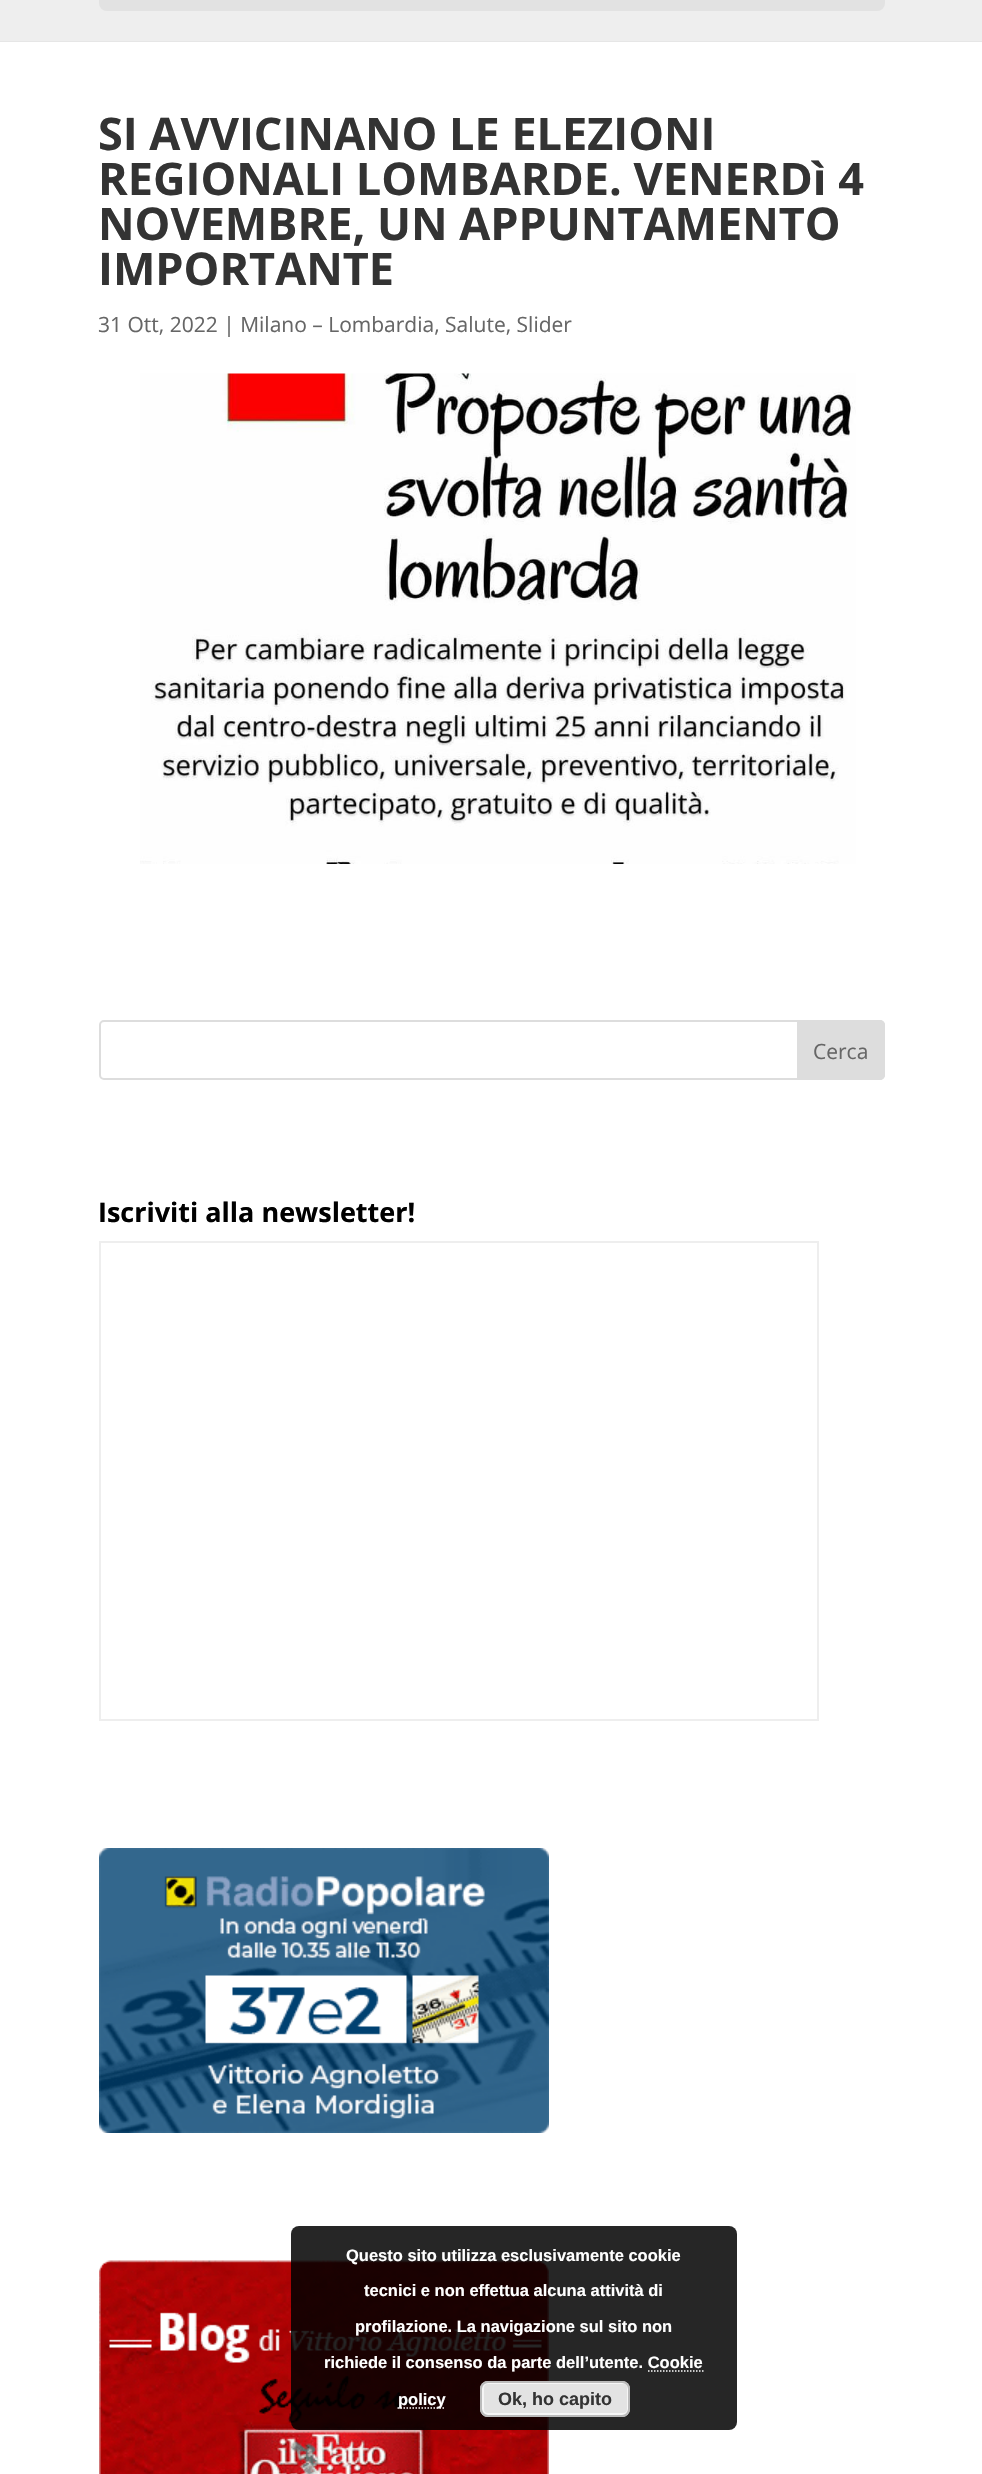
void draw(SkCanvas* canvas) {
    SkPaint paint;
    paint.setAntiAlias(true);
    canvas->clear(0xFFFFFFFF);
    paint.setColor(0xFFE6E6E6);
    canvas->drawPath(SkPathBuilder().moveTo(0, 40).lineTo(0, 42).lineTo(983, 42).lineTo(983, -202).lineTo(982, -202).lineTo(982, 40).close().detach(), paint);
    paint.setColor(0xFFEEEEEE);
    canvas->drawRect(SkRect::MakeXYWH(0, 0, 982, 41), paint);
    paint.setColor(0xFFE2E2E2);
    canvas->drawRoundRect(SkRect::MakeXYWH(99, -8, 786, 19), 8, 8, paint);
    SkFont font1(fontMgr->matchFamilyStyle("Open Sans", SkFontStyle::Bold()), 45);
    font1.setSubpixel(true);
    paint.setColor(0xFF333333);
    canvas->drawString("SI AVVICINANO LE ELEZIONI", 98, 150, font1, paint);
    canvas->drawString("REGIONALI LOMBARDE. VENERDì 4", 98, 195, font1, paint);
    canvas->drawString("NOVEMBRE, UN APPUNTAMENTO", 98, 240, font1, paint);
    canvas->drawString("IMPORTANTE", 98, 285, font1, paint);
    SkFont font2(fontMgr->matchFamilyStyle("Open Sans", SkFontStyle::Normal()), 21);
    font2.setSubpixel(true);
    paint.setColor(0xFF666666);
    canvas->drawString("31 Ott, 2022 | Milano – Lombardia, Salute, Slider", 98, 332, font2, paint);
    canvas->drawImageRect(SkImages::DeferredFromEncodedData(SkData::MakeFromFileName("img1.png")), SkRect::MakeXYWH(140, 373, 716, 491), SkSamplingOptions());
    paint.setStyle(SkPaint::kStroke_Style);
    paint.setStrokeWidth(2);
    paint.setColor(0xFFDDDDDD);
    canvas->drawRoundRect(SkRect::MakeXYWH(100, 1021, 784, 58), 4, 4, paint);
    paint.setStyle(SkPaint::kFill_Style);
    canvas->drawPath(SkPathBuilder().moveTo(798, 1021).lineTo(880, 1021).cubicTo(882, 1021, 884, 1023, 884, 1025).lineTo(884, 1075).cubicTo(884, 1077, 882, 1079, 880, 1079).lineTo(798, 1079).close().detach(), paint);
    paint.setStyle(SkPaint::kStroke_Style);
    canvas->drawPath(SkPathBuilder().moveTo(798, 1021).lineTo(880, 1021).cubicTo(882, 1021, 884, 1023, 884, 1025).lineTo(884, 1075).cubicTo(884, 1077, 882, 1079, 880, 1079).lineTo(798, 1079).close().detach(), paint);
    paint.setStyle(SkPaint::kFill_Style);
    paint.setColor(0xFF666666);
    canvas->drawString("Cerca", 813, 1059, font2, paint);
    SkFont font3(fontMgr->matchFamilyStyle("Open Sans", SkFontStyle::Bold()), 27);
    font3.setSubpixel(true);
    paint.setColor(0xFF000000);
    canvas->drawString("Iscriviti alla newsletter!", 98, 1222, font3, paint);
    paint.setStyle(SkPaint::kStroke_Style);
    paint.setColor(0xFFEEEEEE);
    canvas->drawRect(SkRect::MakeXYWH(100, 1242, 718, 478), paint);
    canvas->drawImageRect(SkImages::DeferredFromEncodedData(SkData::MakeFromFileName("img2.png")), SkRect::MakeXYWH(99, 1848, 450, 285), SkSamplingOptions());
    canvas->drawImageRect(SkImages::DeferredFromEncodedData(SkData::MakeFromFileName("img3.png")), SkRect::MakeXYWH(99, 2260, 450, 214), SkSamplingOptions());
    paint.setStyle(SkPaint::kFill_Style);
    paint.setColor(0xD9000000);
    canvas->drawRoundRect(SkRect::MakeXYWH(291, 2226, 446, 204), 8, 8, paint);
    SkFont font4(fontMgr->matchFamilyStyle("Liberation Sans", SkFontStyle::Bold()), 16.5f);
    font4.setSubpixel(true);
    paint.setColor(0xFFFFFFFF);
    canvas->drawString("Questo sito utilizza esclusivamente cookie", 346, 2261, font4, paint);
    canvas->drawString("tecnici e non effettua alcuna attività di", 364, 2296, font4, paint);
    canvas->drawString("profilazione. La navigazione sul sito non", 355, 2332, font4, paint);
    canvas->drawString("richiede il consenso da parte dell’utente. Cookie", 324, 2368, font4, paint);
    paint.setStyle(SkPaint::kStroke_Style);
    paint.setStrokeWidth(1.5f);
    paint.setPathEffect(SkDashPathEffect::Make({{1.5f, 1.5f}}, 0));
    canvas->drawPath(SkPathBuilder().moveTo(397.5f, 2408).lineTo(445.5f, 2408).detach(), paint);
    paint.setPathEffect(nullptr);
    paint.setStyle(SkPaint::kFill_Style);
    canvas->drawString("policy", 398, 2405, font4, paint);
    paint.setStyle(SkPaint::kStroke_Style);
    paint.setPathEffect(SkDashPathEffect::Make({{1.5f, 1.5f}}, 0));
    canvas->drawPath(SkPathBuilder().moveTo(648, 2371).lineTo(703.5f, 2371).detach(), paint);
    paint.setPathEffect(nullptr);
    paint.setStyle(SkPaint::kFill_Style);
    paint.setColor(0xFFE3E3E3);
    canvas->drawRoundRect(SkRect::MakeXYWH(480, 2381, 150, 36), 8, 8, paint);
    paint.setStyle(SkPaint::kStroke_Style);
    paint.setStrokeWidth(2);
    paint.setColor(0xFFF6F6F6);
    canvas->drawRoundRect(SkRect::MakeXYWH(483, 2383, 145, 31), 5, 5, paint);
    paint.setColor(0xFFBBBBBB);
    canvas->drawRoundRect(SkRect::MakeXYWH(481, 2382, 148, 34), 7, 7, paint);
    SkFont font5(fontMgr->matchFamilyStyle("Liberation Sans", SkFontStyle::Bold()), 18);
    font5.setSubpixel(true);
    paint.setStyle(SkPaint::kFill_Style);
    paint.setColor(0xFF333333);
    canvas->drawString("Ok, ho capito", 498, 2405, font5, paint);
}
